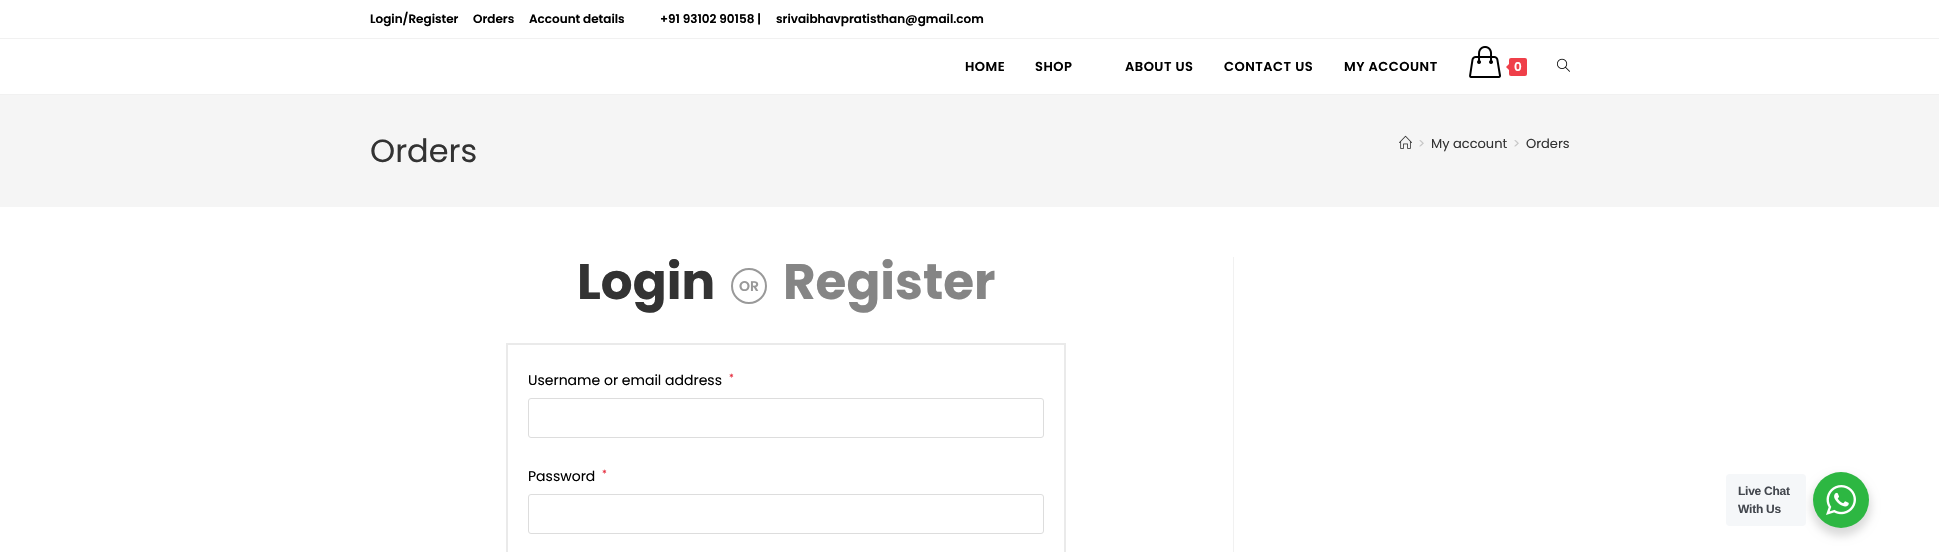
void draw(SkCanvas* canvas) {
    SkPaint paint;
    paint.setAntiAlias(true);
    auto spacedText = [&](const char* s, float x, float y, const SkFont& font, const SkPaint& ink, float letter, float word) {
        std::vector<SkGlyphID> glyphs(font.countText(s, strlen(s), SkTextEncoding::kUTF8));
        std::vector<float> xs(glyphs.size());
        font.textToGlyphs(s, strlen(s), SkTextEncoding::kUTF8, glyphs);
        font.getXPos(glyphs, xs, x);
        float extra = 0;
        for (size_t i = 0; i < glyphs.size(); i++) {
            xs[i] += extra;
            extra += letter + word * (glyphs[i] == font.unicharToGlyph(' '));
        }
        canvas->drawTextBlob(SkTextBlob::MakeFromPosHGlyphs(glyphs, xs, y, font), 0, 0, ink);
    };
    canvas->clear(0xFFFFFFFF);
    paint.setColor(0xFFF1F1F1);
    canvas->drawRect(SkRect::MakeXYWH(0, 38, 1939, 1), paint);
    SkFont font1(fontMgr->matchFamilyStyle("Poppins", SkFontStyle(600, SkFontStyle::kNormal_Width, SkFontStyle::kUpright_Slant)), 12);
    font1.setSubpixel(true);
    paint.setColor(0xFF000000);
    canvas->drawString("Login/Register", 370, 23, font1, paint);
    canvas->drawString("Orders", 473, 23, font1, paint);
    canvas->drawString("Account details", 529, 23, font1, paint);
    canvas->drawString("+91 93102 90158 |", 660, 23, font1, paint);
    canvas->drawString("srivaibhavpratisthan@gmail.com", 776, 23, font1, paint);
    paint.setColor(0xFFF1F1F1);
    canvas->drawRect(SkRect::MakeXYWH(0, 94, 1939, 1), paint);
    SkFont font2(fontMgr->matchFamilyStyle("Poppins", SkFontStyle(600, SkFontStyle::kNormal_Width, SkFontStyle::kUpright_Slant)), 13);
    font2.setSubpixel(true);
    paint.setColor(0xFF000000);
    spacedText("HOME", 965, 71, font2, paint, 0.5f, 0);
    spacedText("SHOP", 1035, 71, font2, paint, 0.5f, 0);
    spacedText("ABOUT US", 1125, 71, font2, paint, 0.5f, 0);
    spacedText("CONTACT US", 1224, 71, font2, paint, 0.5f, 0);
    spacedText("MY ACCOUNT", 1344, 71, font2, paint, 0.5f, 0);
    canvas->drawImageRect(SkImages::DeferredFromEncodedData(SkData::MakeFromFileName("img1.png")), SkRect::MakeXYWH(1469, 46, 32, 32), SkSamplingOptions());
    paint.setColor(0xFFEF3F49);
    canvas->drawRoundRect(SkRect::MakeXYWH(1509, 58, 18, 18), 2, 2, paint);
    canvas->drawPath(SkPathBuilder().moveTo(1511, 62).lineTo(1511, 72).lineTo(1506, 67).close().detach(), paint);
    paint.setColor(0xFFFFFFFF);
    canvas->drawString("0", 1514, 71, font1, paint);
    canvas->drawImageRect(SkImages::DeferredFromEncodedData(SkData::MakeFromFileName("img2.png")), SkRect::MakeXYWH(1557, 58, 13, 14), SkSamplingOptions());
    paint.setColor(0xFFF5F5F5);
    canvas->drawRect(SkRect::MakeXYWH(0, 95, 1939, 112), paint);
    SkFont font3(fontMgr->matchFamilyStyle("Poppins", SkFontStyle::Normal()), 32);
    font3.setSubpixel(true);
    paint.setColor(0xFF333333);
    canvas->drawString("Orders", 370, 162, font3, paint);
    canvas->drawImageRect(SkImages::DeferredFromEncodedData(SkData::MakeFromFileName("img3.png")), SkRect::MakeXYWH(1399, 135, 13, 14), SkSamplingOptions());
    SkFont font4(fontMgr->matchFamilyStyle("Poppins", SkFontStyle::Normal()), 13);
    font4.setSubpixel(true);
    paint.setColor(0xFFC6C6C6);
    canvas->drawString(">", 1418, 148, font4, paint);
    paint.setColor(0xFF333333);
    canvas->drawString("My account", 1431, 148, font4, paint);
    paint.setColor(0xFFC6C6C6);
    canvas->drawString(">", 1513, 148, font4, paint);
    paint.setColor(0xFF333333);
    canvas->drawString("Orders", 1526, 148, font4, paint);
    paint.setColor(0xFFF1F1F1);
    canvas->drawRect(SkRect::MakeXYWH(1233, 257, 1, 295), paint);
    SkFont font5(fontMgr->matchFamilyStyle("Poppins", SkFontStyle::Bold()), 50);
    font5.setSubpixel(true);
    paint.setColor(0xFF333333);
    canvas->drawString("Login", 577, 299, font5, paint);
    paint.setStyle(SkPaint::kStroke_Style);
    paint.setStrokeWidth(2);
    paint.setColor(0xFF999999);
    canvas->drawCircle(749, 286, 17, paint);
    SkFont font6(fontMgr->matchFamilyStyle("Poppins", SkFontStyle(600, SkFontStyle::kNormal_Width, SkFontStyle::kUpright_Slant)), 14);
    font6.setSubpixel(true);
    paint.setStyle(SkPaint::kFill_Style);
    canvas->drawString("OR", 739, 291, font6, paint);
    paint.setColor(0xFF858585);
    canvas->drawString("Register", 783, 299, font5, paint);
    paint.setStyle(SkPaint::kStroke_Style);
    paint.setColor(0xFFEAEAEA);
    canvas->drawRect(SkRect::MakeXYWH(507, 344, 558, 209), paint);
    SkFont font7(fontMgr->matchFamilyStyle("Poppins", SkFontStyle::Normal()), 14);
    font7.setSubpixel(true);
    paint.setStyle(SkPaint::kFill_Style);
    paint.setColor(0xFF000000);
    canvas->drawString("Username or email address", 528, 385, font7, paint);
    SkFont font8(fontMgr->matchFamilyStyle("Poppins", SkFontStyle::Normal()), 10);
    font8.setSubpixel(true);
    paint.setColor(0xFFE42234);
    canvas->drawString("*", 729, 381, font8, paint);
    paint.setStyle(SkPaint::kStroke_Style);
    paint.setStrokeWidth(1);
    paint.setColor(0xFFDDDDDD);
    canvas->drawRoundRect(SkRect::MakeXYWH(528.5f, 398.5f, 515, 39), 2.5f, 2.5f, paint);
    paint.setStyle(SkPaint::kFill_Style);
    paint.setColor(0xFF000000);
    canvas->drawString("Password", 528, 481, font7, paint);
    paint.setColor(0xFFE42234);
    canvas->drawString("*", 602, 477, font8, paint);
    paint.setStyle(SkPaint::kStroke_Style);
    paint.setColor(0xFFDDDDDD);
    canvas->drawRoundRect(SkRect::MakeXYWH(528.5f, 494.5f, 515, 39), 2.5f, 2.5f, paint);
    paint.setStyle(SkPaint::kFill_Style);
    paint.setColor(0x24000000);
    paint.setMaskFilter(SkMaskFilter::MakeBlur(kNormal_SkBlurStyle, 4));
    canvas->drawRoundRect(SkRect::MakeXYWH(1811, 476, 60, 60), 30, 30, paint);
    paint.setMaskFilter(nullptr);
    paint.setColor(0xFFF5F7F9);
    canvas->drawRoundRect(SkRect::MakeXYWH(1726, 474, 80, 52), 4, 4, paint);
    SkFont font9(fontMgr->matchFamilyStyle("Liberation Sans", SkFontStyle::Bold()), 12);
    font9.setSubpixel(true);
    paint.setColor(0xFF43474E);
    spacedText("Live Chat", 1738, 495, font9, paint, -0.25f, 0);
    spacedText("With Us", 1738, 513, font9, paint, -0.25f, 0);
    paint.setColor(0xFF2DB742);
    canvas->drawCircle(1841, 500, 28, paint);
    canvas->drawImageRect(SkImages::DeferredFromEncodedData(SkData::MakeFromFileName("img4.png")), SkRect::MakeXYWH(1826, 485, 30, 30), SkSamplingOptions());
}
